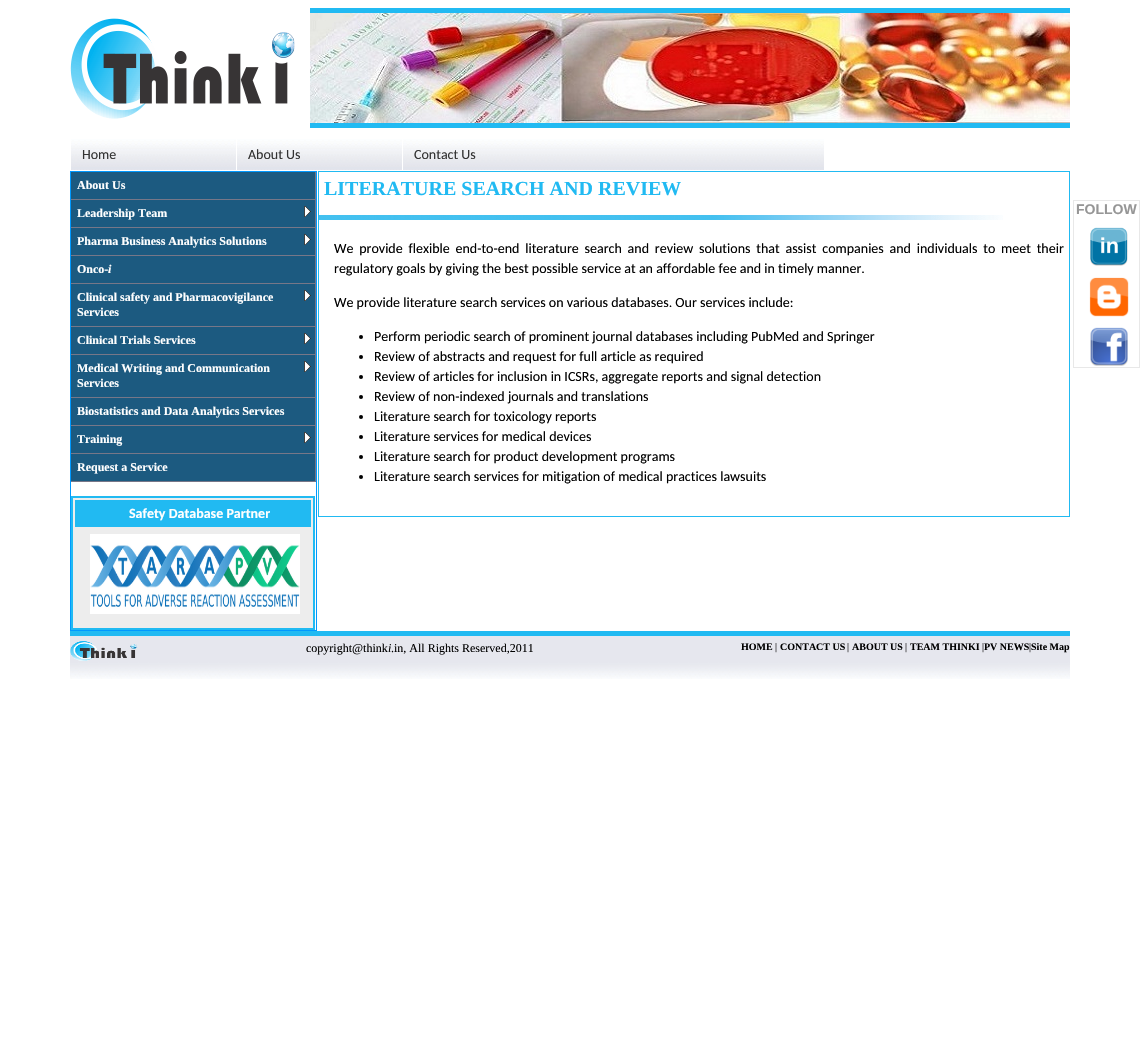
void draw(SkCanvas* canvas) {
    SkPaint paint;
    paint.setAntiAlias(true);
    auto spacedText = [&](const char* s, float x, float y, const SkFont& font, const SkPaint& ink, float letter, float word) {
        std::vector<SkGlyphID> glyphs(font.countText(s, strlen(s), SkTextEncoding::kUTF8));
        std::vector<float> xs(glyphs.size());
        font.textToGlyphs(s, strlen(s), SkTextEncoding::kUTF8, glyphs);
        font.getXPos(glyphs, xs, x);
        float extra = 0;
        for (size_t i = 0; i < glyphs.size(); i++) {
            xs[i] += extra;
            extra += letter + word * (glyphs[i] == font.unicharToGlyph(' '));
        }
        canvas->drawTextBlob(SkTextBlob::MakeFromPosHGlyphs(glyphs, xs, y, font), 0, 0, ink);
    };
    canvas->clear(0xFFFFFFFF);
    canvas->drawImageRect(SkImages::DeferredFromEncodedData(SkData::MakeFromFileName("img1.png")), SkRect::MakeXYWH(70, 18, 225, 101), SkSamplingOptions());
    paint.setColor(0xFF21BAF2);
    canvas->drawRect(SkRect::MakeXYWH(310, 8, 760, 5), paint);
    canvas->drawImageRect(SkImages::DeferredFromEncodedData(SkData::MakeFromFileName("img2.png")), SkRect::MakeXYWH(310, 13, 760, 110), SkSamplingOptions());
    canvas->drawRect(SkRect::MakeXYWH(310, 123, 760, 5), paint);
    canvas->drawImageRect(SkImages::DeferredFromEncodedData(SkData::MakeFromFileName("img3.png")), SkRect::MakeXYWH(71, 139, 165, 31), SkSamplingOptions());
    SkFont font1(fontMgr->matchFamilyStyle("Carlito", SkFontStyle::Normal()), 14);
    font1.setSubpixel(true);
    paint.setColor(0xFF333333);
    canvas->drawString("Home", 82, 159, font1, paint);
    canvas->drawImageRect(SkImages::DeferredFromEncodedData(SkData::MakeFromFileName("img3.png")), SkRect::MakeXYWH(237, 139, 165, 31), SkSamplingOptions());
    canvas->drawString("About Us", 248, 159, font1, paint);
    canvas->drawImageRect(SkImages::DeferredFromEncodedData(SkData::MakeFromFileName("img4.png")), SkRect::MakeXYWH(403, 139, 421, 31), SkSamplingOptions());
    canvas->drawString("Contact Us", 414, 159, font1, paint);
    paint.setStyle(SkPaint::kStroke_Style);
    paint.setStrokeWidth(1);
    paint.setColor(0xFF0099FF);
    canvas->drawRect(SkRect::MakeXYWH(70.5f, 171.5f, 246, 459), paint);
    paint.setStyle(SkPaint::kFill_Style);
    paint.setColor(0xFF1C5A80);
    canvas->drawRect(SkRect::MakeXYWH(71, 172, 244, 27), paint);
    paint.setColor(0xFF777788);
    canvas->drawRect(SkRect::MakeXYWH(315, 172, 1, 28), paint);
    canvas->drawRect(SkRect::MakeXYWH(71, 199, 245, 1), paint);
    SkFont font2(fontMgr->matchFamilyStyle("Liberation Serif", SkFontStyle::Bold()), 12);
    font2.setSubpixel(true);
    paint.setColor(0xFFFFFFFF);
    canvas->drawString("About Us", 77, 189, font2, paint);
    paint.setColor(0xFF1C5A80);
    canvas->drawRect(SkRect::MakeXYWH(71, 200, 244, 27), paint);
    paint.setColor(0xFF777788);
    canvas->drawRect(SkRect::MakeXYWH(315, 200, 1, 84), paint);
    canvas->drawRect(SkRect::MakeXYWH(71, 227, 245, 1), paint);
    paint.setColor(0xFFFFFFFF);
    canvas->drawString("Leadership Team", 77, 217, font2, paint);
    canvas->drawImageRect(SkImages::DeferredFromEncodedData(SkData::MakeFromFileName("img5.png")), SkRect::MakeXYWH(304, 206, 7, 11), SkSamplingOptions());
    paint.setColor(0xFF1C5A80);
    canvas->drawRect(SkRect::MakeXYWH(71, 228, 244, 27), paint);
    paint.setColor(0xFF777788);
    canvas->drawRect(SkRect::MakeXYWH(71, 255, 245, 1), paint);
    paint.setColor(0xFFFFFFFF);
    canvas->drawString("Pharma Business Analytics Solutions", 77, 245, font2, paint);
    canvas->drawImageRect(SkImages::DeferredFromEncodedData(SkData::MakeFromFileName("img5.png")), SkRect::MakeXYWH(304, 234, 7, 11), SkSamplingOptions());
    paint.setColor(0xFF1C5A80);
    canvas->drawRect(SkRect::MakeXYWH(71, 256, 244, 27), paint);
    paint.setColor(0xFF777788);
    canvas->drawRect(SkRect::MakeXYWH(71, 283, 245, 1), paint);
    paint.setColor(0xFFFFFFFF);
    canvas->drawString("Onco-", 77, 273, font2, paint);
    SkFont font3(fontMgr->matchFamilyStyle("Liberation Serif", SkFontStyle::BoldItalic()), 12);
    font3.setSubpixel(true);
    canvas->drawString("i", 108, 273, font3, paint);
    paint.setColor(0xFF1C5A80);
    canvas->drawRect(SkRect::MakeXYWH(71, 284, 244, 42), paint);
    paint.setColor(0xFF777788);
    canvas->drawRect(SkRect::MakeXYWH(315, 284, 1, 142), paint);
    canvas->drawRect(SkRect::MakeXYWH(71, 326, 245, 1), paint);
    paint.setColor(0xFFFFFFFF);
    canvas->drawString("Clinical safety and Pharmacovigilance", 77, 301, font2, paint);
    canvas->drawImageRect(SkImages::DeferredFromEncodedData(SkData::MakeFromFileName("img5.png")), SkRect::MakeXYWH(304, 290, 7, 11), SkSamplingOptions());
    canvas->drawString("Services", 77, 316, font2, paint);
    paint.setColor(0xFF1C5A80);
    canvas->drawRect(SkRect::MakeXYWH(71, 327, 244, 27), paint);
    paint.setColor(0xFF777788);
    canvas->drawRect(SkRect::MakeXYWH(71, 354, 245, 1), paint);
    paint.setColor(0xFFFFFFFF);
    canvas->drawString("Clinical Trials Services", 77, 344, font2, paint);
    canvas->drawImageRect(SkImages::DeferredFromEncodedData(SkData::MakeFromFileName("img5.png")), SkRect::MakeXYWH(304, 333, 7, 11), SkSamplingOptions());
    paint.setColor(0xFF1C5A80);
    canvas->drawRect(SkRect::MakeXYWH(71, 355, 244, 42), paint);
    paint.setColor(0xFF777788);
    canvas->drawRect(SkRect::MakeXYWH(71, 397, 245, 1), paint);
    paint.setColor(0xFFFFFFFF);
    canvas->drawString("Medical Writing and Communication", 77, 372, font2, paint);
    canvas->drawImageRect(SkImages::DeferredFromEncodedData(SkData::MakeFromFileName("img5.png")), SkRect::MakeXYWH(304, 361, 7, 11), SkSamplingOptions());
    canvas->drawString("Services", 77, 387, font2, paint);
    paint.setColor(0xFF1C5A80);
    canvas->drawRect(SkRect::MakeXYWH(71, 398, 244, 27), paint);
    paint.setColor(0xFF777788);
    canvas->drawRect(SkRect::MakeXYWH(71, 425, 245, 1), paint);
    paint.setColor(0xFFFFFFFF);
    canvas->drawString("Biostatistics and Data Analytics Services", 77, 415, font2, paint);
    paint.setColor(0xFF1C5A80);
    canvas->drawRect(SkRect::MakeXYWH(71, 426, 244, 27), paint);
    paint.setColor(0xFF777788);
    canvas->drawRect(SkRect::MakeXYWH(315, 426, 1, 56), paint);
    canvas->drawRect(SkRect::MakeXYWH(71, 453, 245, 1), paint);
    paint.setColor(0xFFFFFFFF);
    canvas->drawString("Training", 77, 443, font2, paint);
    canvas->drawImageRect(SkImages::DeferredFromEncodedData(SkData::MakeFromFileName("img5.png")), SkRect::MakeXYWH(304, 432, 7, 11), SkSamplingOptions());
    paint.setColor(0xFF1C5A80);
    canvas->drawRect(SkRect::MakeXYWH(71, 454, 244, 27), paint);
    paint.setColor(0xFF777788);
    canvas->drawRect(SkRect::MakeXYWH(71, 481, 245, 1), paint);
    paint.setColor(0xFFFFFFFF);
    canvas->drawString("Request a Service", 77, 471, font2, paint);
    paint.setColor(0xFFEDEDED);
    canvas->drawRect(SkRect::MakeXYWH(72, 497, 242, 132), paint);
    paint.setStyle(SkPaint::kStroke_Style);
    paint.setStrokeWidth(2);
    paint.setColor(0xFF21BAF2);
    canvas->drawRect(SkRect::MakeXYWH(72, 497, 242, 132), paint);
    paint.setStyle(SkPaint::kFill_Style);
    canvas->drawRect(SkRect::MakeXYWH(75, 500, 236, 27), paint);
    SkFont font4(fontMgr->matchFamilyStyle("Carlito", SkFontStyle::Bold()), 14);
    font4.setSubpixel(true);
    paint.setColor(0xFFFFFFFF);
    canvas->drawString("Safety Database Partner", 129, 518, font4, paint);
    canvas->drawImageRect(SkImages::DeferredFromEncodedData(SkData::MakeFromFileName("img6.png")), SkRect::MakeXYWH(90, 534, 210, 80), SkSamplingOptions());
    paint.setStyle(SkPaint::kStroke_Style);
    paint.setStrokeWidth(1);
    paint.setColor(0xFF21BAF2);
    canvas->drawRect(SkRect::MakeXYWH(318.5f, 171.5f, 751, 345), paint);
    SkFont font5(fontMgr->matchFamilyStyle("Liberation Serif", SkFontStyle::Bold()), 20);
    font5.setSubpixel(true);
    paint.setStyle(SkPaint::kFill_Style);
    canvas->drawString("LITERATURE SEARCH AND REVIEW", 324, 195, font5, paint);
    canvas->drawImageRect(SkImages::DeferredFromEncodedData(SkData::MakeFromFileName("img7.png")), SkRect::MakeXYWH(319, 215, 684, 5), SkSamplingOptions());
    paint.setColor(0xFF000000);
    spacedText("We provide flexible end-to-end literature search and review solutions that assist companies and individuals to meet their", 334, 253, font1, paint, 0, 2.6f);
    canvas->drawString("regulatory goals by giving the best possible service at an affordable fee and in timely manner.", 334, 273, font1, paint);
    canvas->drawString("We provide literature search services on various databases. Our services include:", 334, 307, font1, paint);
    canvas->drawCircle(361, 337, 2, paint);
    canvas->drawString("Perform periodic search of prominent journal databases including PubMed and Springer", 374, 341, font1, paint);
    canvas->drawCircle(361, 357, 2, paint);
    canvas->drawString("Review of abstracts and request for full article as required", 374, 361, font1, paint);
    canvas->drawCircle(361, 377, 2, paint);
    canvas->drawString("Review of articles for inclusion in ICSRs, aggregate reports and signal detection", 374, 381, font1, paint);
    canvas->drawCircle(361, 397, 2, paint);
    canvas->drawString("Review of non-indexed journals and translations", 374, 401, font1, paint);
    canvas->drawCircle(361, 417, 2, paint);
    canvas->drawString("Literature search for toxicology reports", 374, 421, font1, paint);
    canvas->drawCircle(361, 437, 2, paint);
    canvas->drawString("Literature services for medical devices", 374, 441, font1, paint);
    canvas->drawCircle(361, 457, 2, paint);
    canvas->drawString("Literature search for product development programs", 374, 461, font1, paint);
    canvas->drawCircle(361, 477, 2, paint);
    canvas->drawString("Literature search services for mitigation of medical practices lawsuits", 374, 481, font1, paint);
    paint.setStyle(SkPaint::kStroke_Style);
    paint.setColor(0xFFE8E8E8);
    canvas->drawRect(SkRect::MakeXYWH(1073.5f, 200.5f, 66, 167), paint);
    SkFont font6(fontMgr->matchFamilyStyle("Liberation Sans", SkFontStyle::Bold()), 14);
    font6.setSubpixel(true);
    paint.setStyle(SkPaint::kFill_Style);
    paint.setColor(0xFF969696);
    canvas->drawString("FOLLOW", 1076, 214, font6, paint);
    canvas->drawImageRect(SkImages::DeferredFromEncodedData(SkData::MakeFromFileName("img8.png")), SkRect::MakeXYWH(1090, 227, 38, 39), SkSamplingOptions());
    canvas->drawImageRect(SkImages::DeferredFromEncodedData(SkData::MakeFromFileName("img9.png")), SkRect::MakeXYWH(1089, 277, 40, 40), SkSamplingOptions());
    canvas->drawImageRect(SkImages::DeferredFromEncodedData(SkData::MakeFromFileName("img10.png")), SkRect::MakeXYWH(1090, 327, 38, 39), SkSamplingOptions());
    paint.setColor(0xFF21BAF2);
    canvas->drawRect(SkRect::MakeXYWH(70, 631, 1000, 5), paint);
    canvas->drawImageRect(SkImages::DeferredFromEncodedData(SkData::MakeFromFileName("img11.png")), SkRect::MakeXYWH(70, 636, 1000, 43), SkSamplingOptions());
    canvas->drawImageRect(SkImages::DeferredFromEncodedData(SkData::MakeFromFileName("img12.png")), SkRect::MakeXYWH(70, 641, 68, 20), SkSamplingOptions());
    SkFont font7(fontMgr->matchFamilyStyle("Liberation Serif", SkFontStyle::Normal()), 12);
    font7.setSubpixel(true);
    paint.setColor(0xFF000000);
    canvas->drawString("copyright@think", 306, 652, font7, paint);
    SkFont font8(fontMgr->matchFamilyStyle("Liberation Serif", SkFontStyle::Italic()), 12);
    font8.setSubpixel(true);
    canvas->drawString("i", 388, 652, font8, paint);
    canvas->drawString(".in, All Rights Reserved,2011", 391, 652, font7, paint);
    SkFont font9(fontMgr->matchFamilyStyle("Liberation Serif", SkFontStyle::Bold()), 10);
    font9.setSubpixel(true);
    canvas->drawString("HOME", 741, 650, font9, paint);
    SkFont font10(fontMgr->matchFamilyStyle("Liberation Serif", SkFontStyle::Normal()), 10);
    font10.setSubpixel(true);
    canvas->drawString("|", 775, 650, font10, paint);
    canvas->drawString("CONTACT US", 780, 650, font9, paint);
    canvas->drawString("|", 847, 650, font10, paint);
    canvas->drawString("ABOUT US", 852, 650, font9, paint);
    canvas->drawString("|", 905, 650, font10, paint);
    canvas->drawString("TEAM THINKI", 910, 650, font9, paint);
    canvas->drawString("|", 982, 650, font10, paint);
    canvas->drawString("PV NEWS", 984, 650, font9, paint);
    canvas->drawString("|", 1029, 650, font10, paint);
    canvas->drawString("Site Map", 1031, 650, font9, paint);
}
